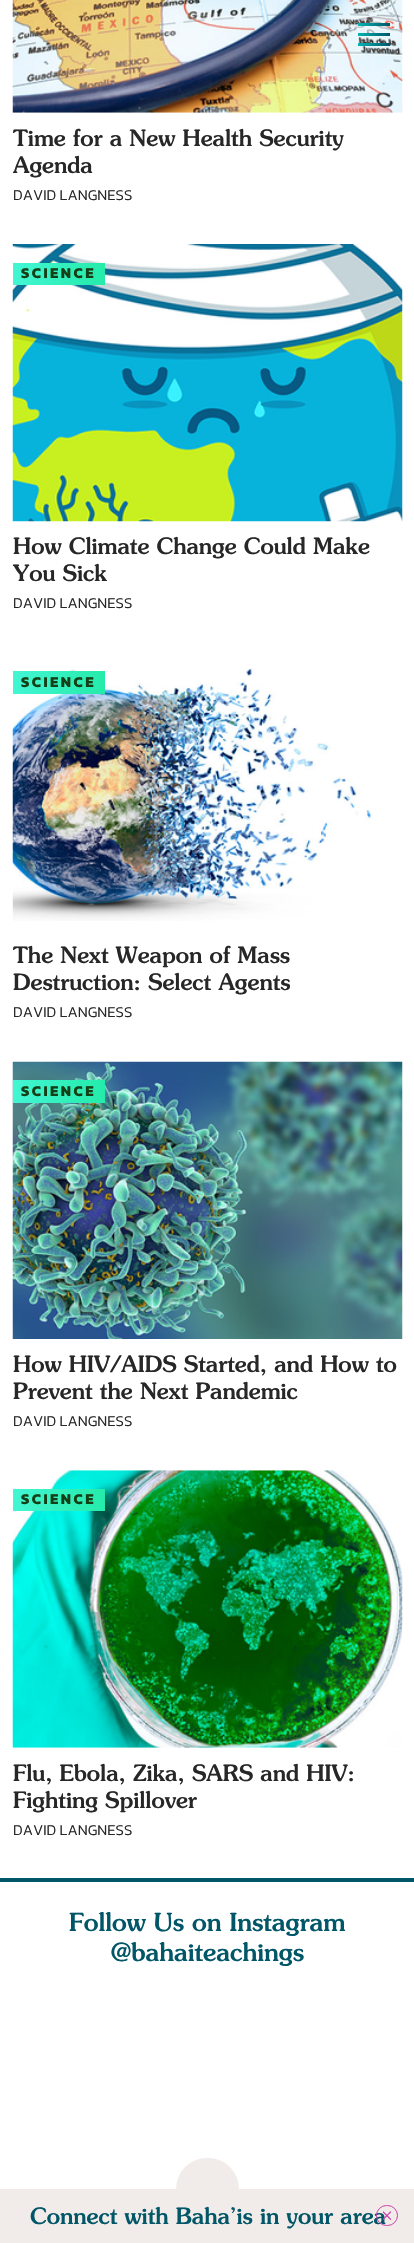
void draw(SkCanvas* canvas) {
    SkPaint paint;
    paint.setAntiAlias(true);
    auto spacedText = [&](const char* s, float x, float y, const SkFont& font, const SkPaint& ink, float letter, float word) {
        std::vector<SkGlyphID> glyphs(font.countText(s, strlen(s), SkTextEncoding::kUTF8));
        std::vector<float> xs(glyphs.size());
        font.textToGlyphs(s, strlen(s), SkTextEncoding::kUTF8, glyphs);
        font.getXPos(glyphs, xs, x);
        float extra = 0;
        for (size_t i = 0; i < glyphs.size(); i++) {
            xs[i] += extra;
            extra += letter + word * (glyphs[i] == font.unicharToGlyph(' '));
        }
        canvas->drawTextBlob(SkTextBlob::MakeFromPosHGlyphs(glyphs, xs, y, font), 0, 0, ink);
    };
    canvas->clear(0xFFFFFFFF);
    canvas->drawImageRect(SkImages::DeferredFromEncodedData(SkData::MakeFromFileName("img1.png")), SkRect::MakeXYWH(12, 0, 391, 113), SkSamplingOptions());
    {
        const SkColor colors[] = {0xFF04B5B5, 0xFF015668};
        const float stops[] = {0, 1};
        const SkPoint ends[] = {{358, 24}, {390, 24}};
        paint.setShader(SkGradientShader::MakeLinear(ends, colors, stops, 2, SkTileMode::kClamp));
        paint.setAlpha(255);
    }
    canvas->drawRect(SkRect::MakeXYWH(358, 23, 32, 3), paint);
    {
        const SkColor colors[] = {0xFF04B5B5, 0xFF015668};
        const float stops[] = {0, 1};
        const SkPoint ends[] = {{358, 34}, {390, 34}};
        paint.setShader(SkGradientShader::MakeLinear(ends, colors, stops, 2, SkTileMode::kClamp));
        paint.setAlpha(255);
    }
    canvas->drawRect(SkRect::MakeXYWH(358, 33, 32, 3), paint);
    {
        const SkColor colors[] = {0xFF04B5B5, 0xFF015668};
        const float stops[] = {0, 1};
        const SkPoint ends[] = {{358, 44}, {390, 44}};
        paint.setShader(SkGradientShader::MakeLinear(ends, colors, stops, 2, SkTileMode::kClamp));
        paint.setAlpha(255);
    }
    canvas->drawRect(SkRect::MakeXYWH(358, 43, 32, 3), paint);
    SkFont font1(fontMgr->matchFamilyStyle("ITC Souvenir", SkFontStyle(500, SkFontStyle::kNormal_Width, SkFontStyle::kUpright_Slant)), 22.5f);
    font1.setSubpixel(true);
    paint.setShader(nullptr);
    paint.setColor(0xFF272727);
    canvas->drawString("Time for a New Health Security", 13, 146, font1, paint);
    canvas->drawString("Agenda", 13, 173, font1, paint);
    SkFont font2(fontMgr->matchFamilyStyle("Kanit", SkFontStyle(300, SkFontStyle::kNormal_Width, SkFontStyle::kUpright_Slant)), 15);
    font2.setSubpixel(true);
    canvas->drawString("DAVID LANGNESS", 13, 200, font2, paint);
    canvas->drawImageRect(SkImages::DeferredFromEncodedData(SkData::MakeFromFileName("img2.png")), SkRect::MakeXYWH(12, 244, 391, 278), SkSamplingOptions());
    {
        const SkColor colors[] = {0xFF43F6D4, 0xFF24EBAA};
        const float stops[] = {0, 1};
        const SkPoint ends[] = {{13, 274}, {105, 274}};
        paint.setShader(SkGradientShader::MakeLinear(ends, colors, stops, 2, SkTileMode::kClamp));
        paint.setAlpha(255);
    }
    canvas->drawRect(SkRect::MakeXYWH(13, 263, 92, 22), paint);
    SkFont font3(fontMgr->matchFamilyStyle("Kanit", SkFontStyle::Bold()), 15);
    font3.setSubpixel(true);
    paint.setShader(nullptr);
    paint.setColor(0xFF153F16);
    spacedText("SCIENCE", 21, 278, font3, paint, 2.5f, 0);
    paint.setColor(0xFF272727);
    canvas->drawString("How Climate Change Could Make", 13, 554, font1, paint);
    canvas->drawString("You Sick", 13, 581, font1, paint);
    canvas->drawString("DAVID LANGNESS", 13, 608, font2, paint);
    canvas->drawImageRect(SkImages::DeferredFromEncodedData(SkData::MakeFromFileName("img3.png")), SkRect::MakeXYWH(12, 668, 359, 253), SkSamplingOptions());
    {
        const SkColor colors[] = {0xFF43F6D4, 0xFF24EBAA};
        const float stops[] = {0, 1};
        const SkPoint ends[] = {{13, 683}, {105, 683}};
        paint.setShader(SkGradientShader::MakeLinear(ends, colors, stops, 2, SkTileMode::kClamp));
        paint.setAlpha(255);
    }
    canvas->drawRect(SkRect::MakeXYWH(13, 671, 92, 23), paint);
    paint.setShader(nullptr);
    paint.setColor(0xFF153F16);
    spacedText("SCIENCE", 21, 687, font3, paint, 2.5f, 0);
    paint.setColor(0xFF272727);
    canvas->drawString("The Next Weapon of Mass", 13, 963, font1, paint);
    canvas->drawString("Destruction: Select Agents", 13, 990, font1, paint);
    canvas->drawString("DAVID LANGNESS", 13, 1017, font2, paint);
    canvas->drawImageRect(SkImages::DeferredFromEncodedData(SkData::MakeFromFileName("img4.png")), SkRect::MakeXYWH(12, 1061, 391, 278), SkSamplingOptions());
    {
        const SkColor colors[] = {0xFF43F6D4, 0xFF24EBAA};
        const float stops[] = {0, 1};
        const SkPoint ends[] = {{13, 1091}, {105, 1091}};
        paint.setShader(SkGradientShader::MakeLinear(ends, colors, stops, 2, SkTileMode::kClamp));
        paint.setAlpha(255);
    }
    canvas->drawRect(SkRect::MakeXYWH(13, 1080, 92, 23), paint);
    paint.setShader(nullptr);
    paint.setColor(0xFF153F16);
    spacedText("SCIENCE", 21, 1096, font3, paint, 2.5f, 0);
    paint.setColor(0xFF272727);
    canvas->drawString("How HIV/AIDS Started, and How to", 13, 1372, font1, paint);
    canvas->drawString("Prevent the Next Pandemic", 13, 1399, font1, paint);
    canvas->drawString("DAVID LANGNESS", 13, 1426, font2, paint);
    canvas->drawImageRect(SkImages::DeferredFromEncodedData(SkData::MakeFromFileName("img5.png")), SkRect::MakeXYWH(12, 1470, 391, 278), SkSamplingOptions());
    {
        const SkColor colors[] = {0xFF43F6D4, 0xFF24EBAA};
        const float stops[] = {0, 1};
        const SkPoint ends[] = {{13, 1500}, {105, 1500}};
        paint.setShader(SkGradientShader::MakeLinear(ends, colors, stops, 2, SkTileMode::kClamp));
        paint.setAlpha(255);
    }
    canvas->drawRect(SkRect::MakeXYWH(13, 1489, 92, 22), paint);
    paint.setShader(nullptr);
    paint.setColor(0xFF153F16);
    spacedText("SCIENCE", 21, 1504, font3, paint, 2.5f, 0);
    paint.setColor(0xFF272727);
    canvas->drawString("Flu, Ebola, Zika, SARS and HIV:", 13, 1781, font1, paint);
    canvas->drawString("Fighting Spillover", 13, 1808, font1, paint);
    canvas->drawString("DAVID LANGNESS", 13, 1835, font2, paint);
    paint.setColor(0xFF015668);
    canvas->drawRect(SkRect::MakeXYWH(0, 1878, 414, 4), paint);
    SkFont font4(fontMgr->matchFamilyStyle("ITC Souvenir", SkFontStyle(500, SkFontStyle::kNormal_Width, SkFontStyle::kUpright_Slant)), 25);
    font4.setSubpixel(true);
    canvas->drawString("Follow Us on Instagram", 69, 1931, font4, paint);
    canvas->drawString("@bahaiteachings", 111, 1961, font4, paint);
    paint.setColor(0xFFF1ECE9);
    canvas->drawRect(SkRect::MakeXYWH(0, 2189, 414, 54), paint);
    canvas->drawRoundRect(SkRect::MakeXYWH(176, 2158, 63, 62), 31, 31, paint);
    paint.setColor(0xFF015668);
    canvas->drawString("Connect with Baha’is in your area", 30, 2224, font1, paint);
    canvas->drawImageRect(SkImages::DeferredFromEncodedData(SkData::MakeFromFileName("img6.png")), SkRect::MakeXYWH(383, 2211, 8, 9), SkSamplingOptions());
    paint.setStyle(SkPaint::kStroke_Style);
    paint.setStrokeWidth(1);
    paint.setColor(0xFFCC3EA7);
    canvas->drawRoundRect(SkRect::MakeXYWH(376.5f, 2205.5f, 21, 20), 10, 10, paint);
}
